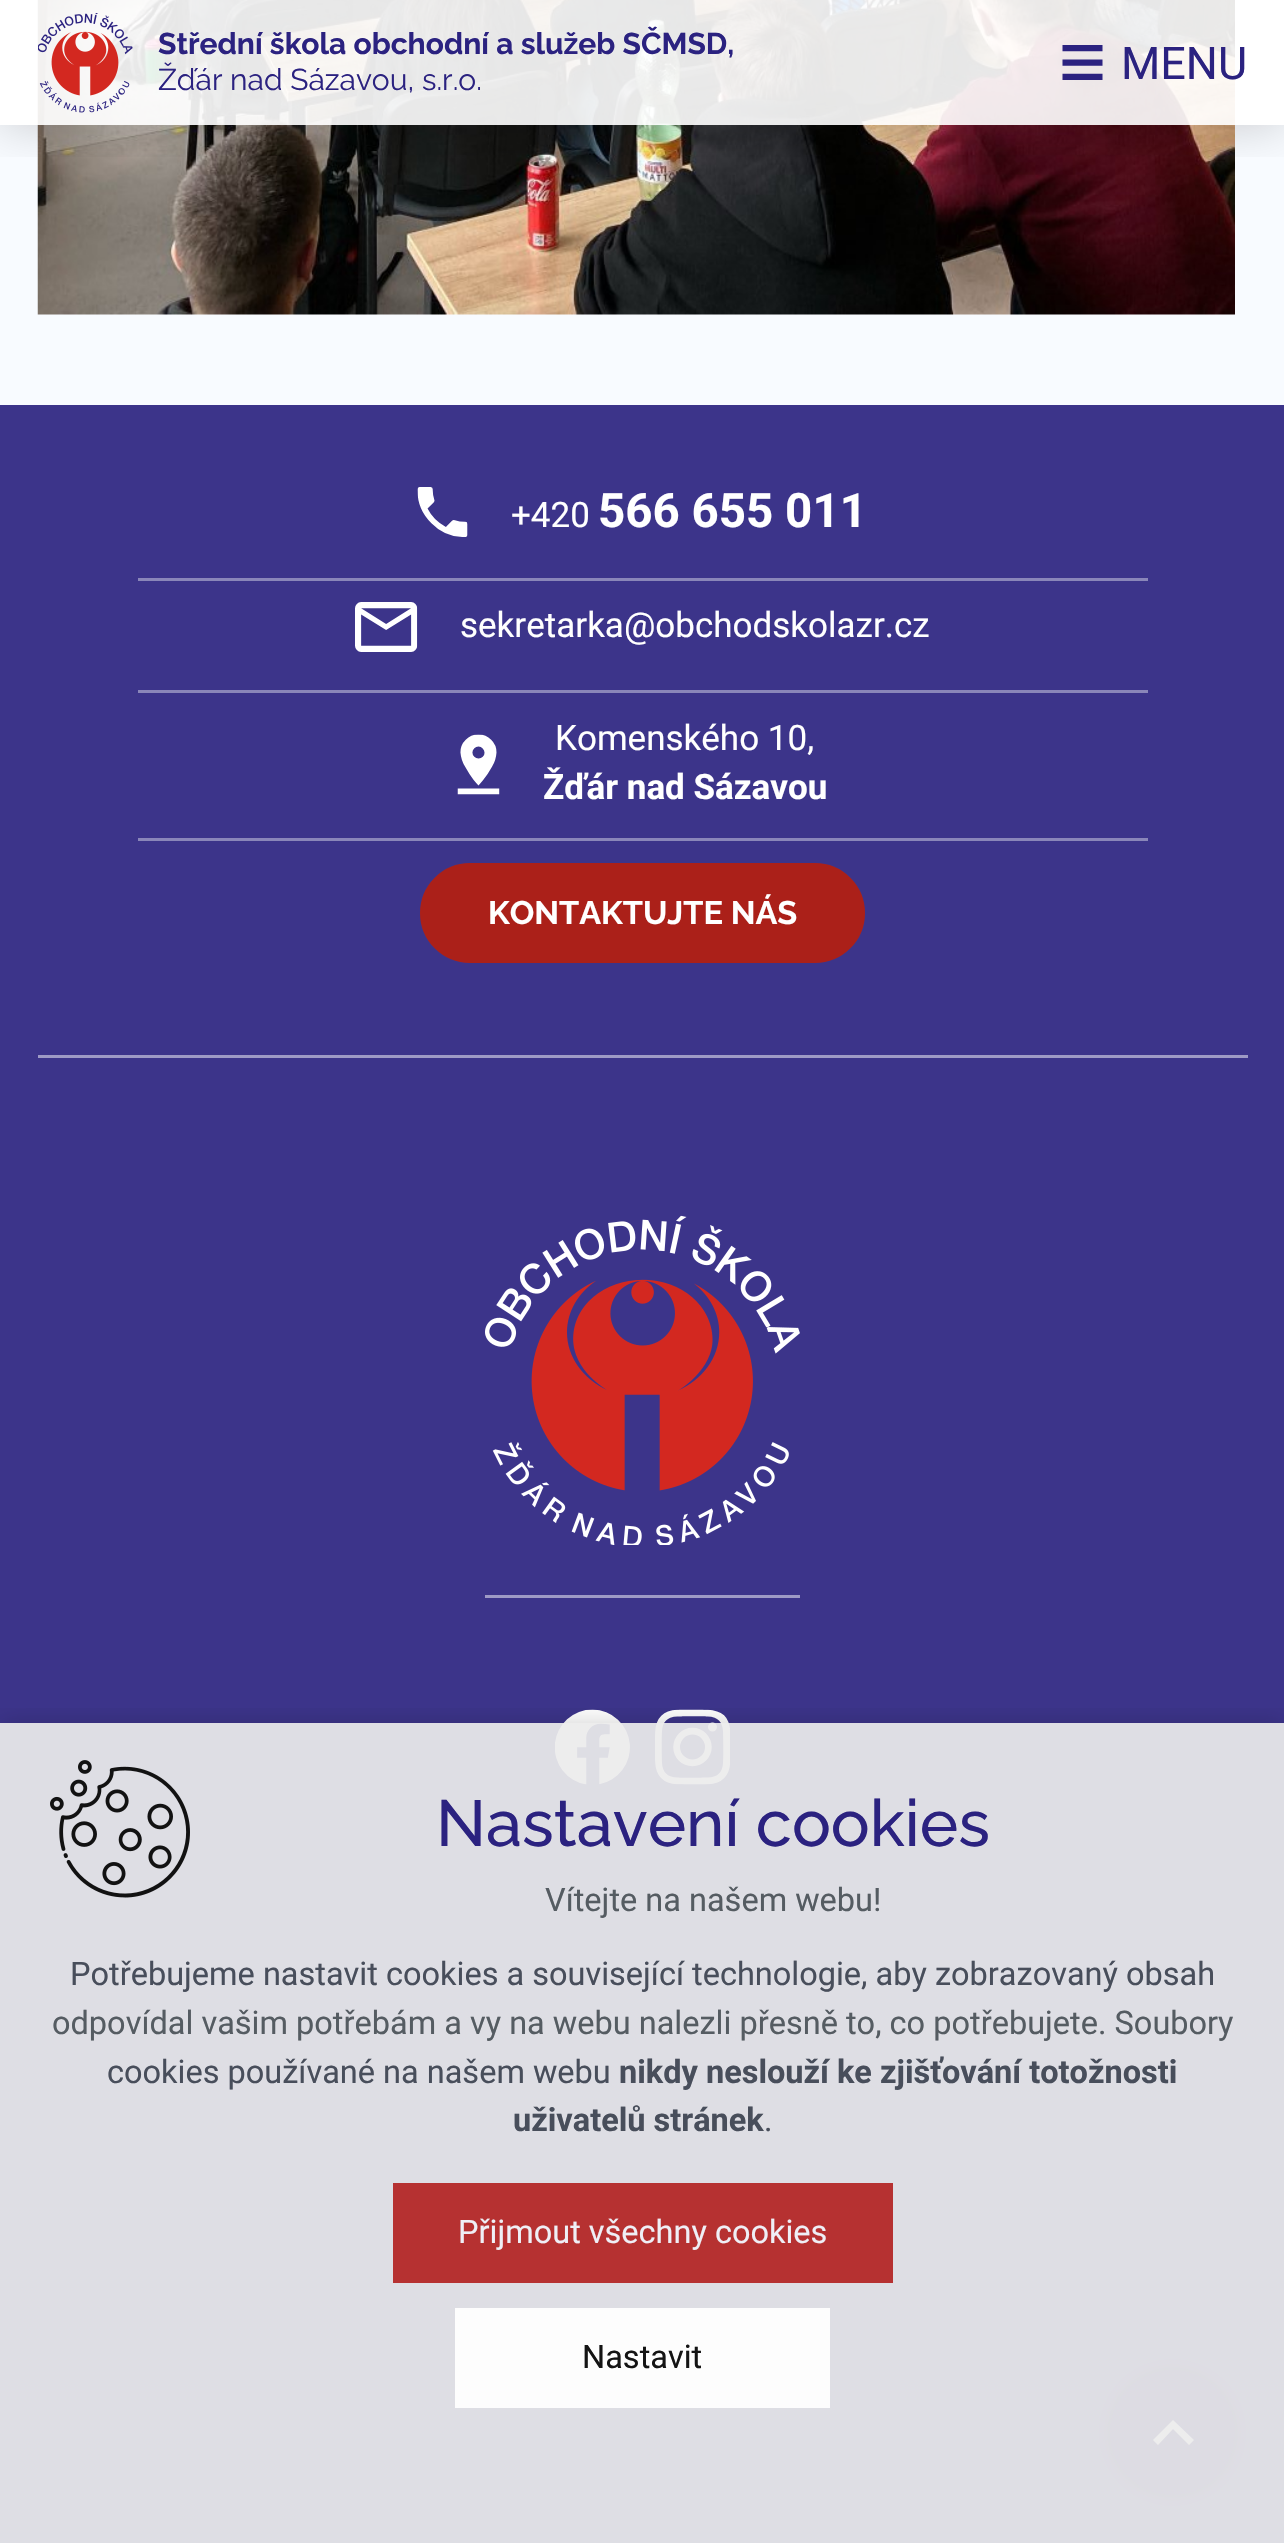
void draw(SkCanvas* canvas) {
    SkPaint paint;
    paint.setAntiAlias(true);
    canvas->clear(0xFFF8FBFF);
    canvas->drawImageRect(SkImages::DeferredFromEncodedData(SkData::MakeFromFileName("img1.png")), SkRect::MakeXYWH(37, 0, 1198, 315), SkSamplingOptions());
    canvas->save();
    canvas->clipRect(SkRect::MakeXYWH(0, 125, 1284, 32));
    paint.setColor(0x33000000);
    paint.setMaskFilter(SkMaskFilter::MakeBlur(kNormal_SkBlurStyle, 25));
    canvas->drawRect(SkRect::MakeXYWH(0, 0, 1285, 125), paint);
    paint.setMaskFilter(nullptr);
    canvas->restore();
    paint.setColor(0xE6FFFFFF);
    canvas->drawRect(SkRect::MakeXYWH(0, 0, 1284, 125), paint);
    canvas->drawImageRect(SkImages::DeferredFromEncodedData(SkData::MakeFromFileName("img2.png")), SkRect::MakeXYWH(38, 13, 95, 100), SkSamplingOptions());
    SkFont font1(fontMgr->matchFamilyStyle("Raleway", SkFontStyle::Bold()), 30);
    font1.setSubpixel(true);
    paint.setColor(0xFF2B2280);
    canvas->drawString("Střední škola obchodní a služeb SČMSD,", 158, 54, font1, paint);
    SkFont font2(fontMgr->matchFamilyStyle("Raleway", SkFontStyle::Normal()), 30);
    font2.setSubpixel(true);
    canvas->drawString("Žďár nad Sázavou, s.r.o.", 158, 90, font2, paint);
    canvas->drawImageRect(SkImages::DeferredFromEncodedData(SkData::MakeFromFileName("img3.png")), SkRect::MakeXYWH(1062, 45, 41, 35), SkSamplingOptions());
    SkFont font3(fontMgr->matchFamilyStyle("Roboto", SkFontStyle::Normal()), 45);
    font3.setSubpixel(true);
    canvas->drawString("MENU", 1121, 79, font3, paint);
    paint.setColor(0xFF3C348A);
    canvas->drawRect(SkRect::MakeXYWH(0, 405, 1284, 2138), paint);
    paint.setColor(0xFF9E9AC5);
    canvas->drawRect(SkRect::MakeXYWH(38, 1055, 1210, 3), paint);
    canvas->drawImageRect(SkImages::DeferredFromEncodedData(SkData::MakeFromFileName("img4.png")), SkRect::MakeXYWH(417, 487, 51, 50), SkSamplingOptions());
    SkFont font4(fontMgr->matchFamilyStyle("Roboto", SkFontStyle::Normal()), 35);
    font4.setSubpixel(true);
    paint.setColor(0xFFFFFFFF);
    canvas->drawString("+420", 511, 527, font4, paint);
    SkFont font5(fontMgr->matchFamilyStyle("Roboto", SkFontStyle::Bold()), 47.5f);
    font5.setSubpixel(true);
    canvas->drawString("566 655 011", 598, 527, font5, paint);
    paint.setColor(0xFF8A86B9);
    canvas->drawRect(SkRect::MakeXYWH(138, 578, 1010, 3), paint);
    canvas->drawImageRect(SkImages::DeferredFromEncodedData(SkData::MakeFromFileName("img5.png")), SkRect::MakeXYWH(355, 602, 63, 50), SkSamplingOptions());
    paint.setColor(0xFFFFFFFF);
    canvas->drawString("sekretarka@obchodskolazr.cz", 460, 637, font4, paint);
    paint.setColor(0xFF8A86B9);
    canvas->drawRect(SkRect::MakeXYWH(138, 690, 1010, 3), paint);
    canvas->drawImageRect(SkImages::DeferredFromEncodedData(SkData::MakeFromFileName("img6.png")), SkRect::MakeXYWH(457, 734, 43, 61), SkSamplingOptions());
    paint.setColor(0xFFFFFFFF);
    canvas->drawString("Komenského 10,", 555, 750, font4, paint);
    SkFont font6(fontMgr->matchFamilyStyle("Roboto", SkFontStyle::Bold()), 35);
    font6.setSubpixel(true);
    canvas->drawString("Žďár nad Sázavou", 543, 799, font6, paint);
    paint.setColor(0xFF8A86B9);
    canvas->drawRect(SkRect::MakeXYWH(138, 838, 1010, 3), paint);
    paint.setColor(0xFFAB2019);
    canvas->drawRoundRect(SkRect::MakeXYWH(422.5f, 865.5f, 440, 95), 47.5f, 47.5f, paint);
    paint.setStyle(SkPaint::kStroke_Style);
    paint.setStrokeWidth(5);
    canvas->drawRoundRect(SkRect::MakeXYWH(422.5f, 865.5f, 440, 95), 47.5f, 47.5f, paint);
    SkFont font7(fontMgr->matchFamilyStyle("Raleway", SkFontStyle::Bold()), 32.5f);
    font7.setSubpixel(true);
    paint.setStyle(SkPaint::kFill_Style);
    paint.setColor(0xFFFFFFFF);
    canvas->drawString("KONTAKTUJTE NÁS", 488, 924, font7, paint);
    canvas->drawImageRect(SkImages::DeferredFromEncodedData(SkData::MakeFromFileName("img7.png")), SkRect::MakeXYWH(485, 1215, 315, 330), SkSamplingOptions());
    paint.setColor(0xFF9E9AC5);
    canvas->drawRect(SkRect::MakeXYWH(485, 1595, 315, 3), paint);
    canvas->drawImageRect(SkImages::DeferredFromEncodedData(SkData::MakeFromFileName("img8.png")), SkRect::MakeXYWH(555, 1709, 75, 76), SkSamplingOptions());
    canvas->drawImageRect(SkImages::DeferredFromEncodedData(SkData::MakeFromFileName("img9.png")), SkRect::MakeXYWH(655, 1709, 75, 76), SkSamplingOptions());
    paint.setColor(0x80000000);
    paint.setMaskFilter(SkMaskFilter::MakeBlur(kNormal_SkBlurStyle, 6));
    canvas->drawRoundRect(SkRect::MakeXYWH(1110, 2370, 125, 125), 62.5f, 62.5f, paint);
    paint.setMaskFilter(nullptr);
    paint.setColor(0xFF2B2280);
    canvas->drawCircle(1172.5f, 2432.5f, 62.5f, paint);
    paint.setColor(0xFFFFFFFF);
    canvas->drawPath(SkPathBuilder().moveTo(1153, 2440).lineTo(1173, 2420).lineTo(1194, 2440).lineTo(1189, 2445).lineTo(1173, 2429).lineTo(1158, 2445).close().detach(), paint);
    canvas->save();
    canvas->clipRect(SkRect::MakeXYWH(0, 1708, 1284, 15));
    paint.setColor(0x2E010101);
    paint.setMaskFilter(SkMaskFilter::MakeBlur(kNormal_SkBlurStyle, 12.5f));
    canvas->drawRect(SkRect::MakeXYWH(0, 1723, 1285, 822), paint);
    paint.setMaskFilter(nullptr);
    canvas->restore();
    paint.setColor(0xEBEBEBEB);
    canvas->drawRect(SkRect::MakeXYWH(0, 1723, 1284, 820), paint);
    canvas->drawImageRect(SkImages::DeferredFromEncodedData(SkData::MakeFromFileName("img10.png")), SkRect::MakeXYWH(50, 1760, 140, 138), SkSamplingOptions());
    SkFont font8(fontMgr->matchFamilyStyle("Raleway", SkFontStyle(500, SkFontStyle::kNormal_Width, SkFontStyle::kUpright_Slant)), 65);
    font8.setSubpixel(true);
    paint.setColor(0xFF2B2280);
    canvas->drawString("Nastavení cookies", 436, 1846, font8, paint);
    SkFont font9(fontMgr->matchFamilyStyle("Roboto", SkFontStyle::Normal()), 32.5f);
    font9.setSubpixel(true);
    paint.setColor(0xFF555C62);
    canvas->drawString("Vítejte na našem webu!", 545, 1911, font9, paint);
    paint.setColor(0xFF484E5B);
    canvas->drawString("Potřebujeme nastavit cookies a související technologie, aby zobrazovaný obsah", 70, 1985, font9, paint);
    paint.setColor(0xFF555C62);
    canvas->drawString("odpovídal vašim potřebám a vy na webu nalezli přesně to, co potřebujete. Soubory", 52, 2034, font9, paint);
    paint.setColor(0xFF484E5B);
    canvas->drawString("cookies používané na našem webu", 107, 2083, font9, paint);
    SkFont font10(fontMgr->matchFamilyStyle("Roboto", SkFontStyle::Bold()), 32.5f);
    font10.setSubpixel(true);
    canvas->drawString("nikdy neslouží ke zjišťování totožnosti", 619, 2083, font10, paint);
    canvas->drawString("uživatelů stránek", 513, 2131, font10, paint);
    canvas->drawString(".", 764, 2131, font9, paint);
    paint.setColor(0xEBB22222);
    canvas->drawRect(SkRect::MakeXYWH(393, 2183, 500, 100), paint);
    paint.setColor(0xFFEFEFF6);
    canvas->drawString("Přijmout všechny cookies", 458, 2243, font9, paint);
    paint.setColor(0xEBFFFFFF);
    canvas->drawRect(SkRect::MakeXYWH(455, 2308, 375, 100), paint);
    paint.setColor(0xFF141414);
    canvas->drawString("Nastavit", 582, 2368, font9, paint);
}
